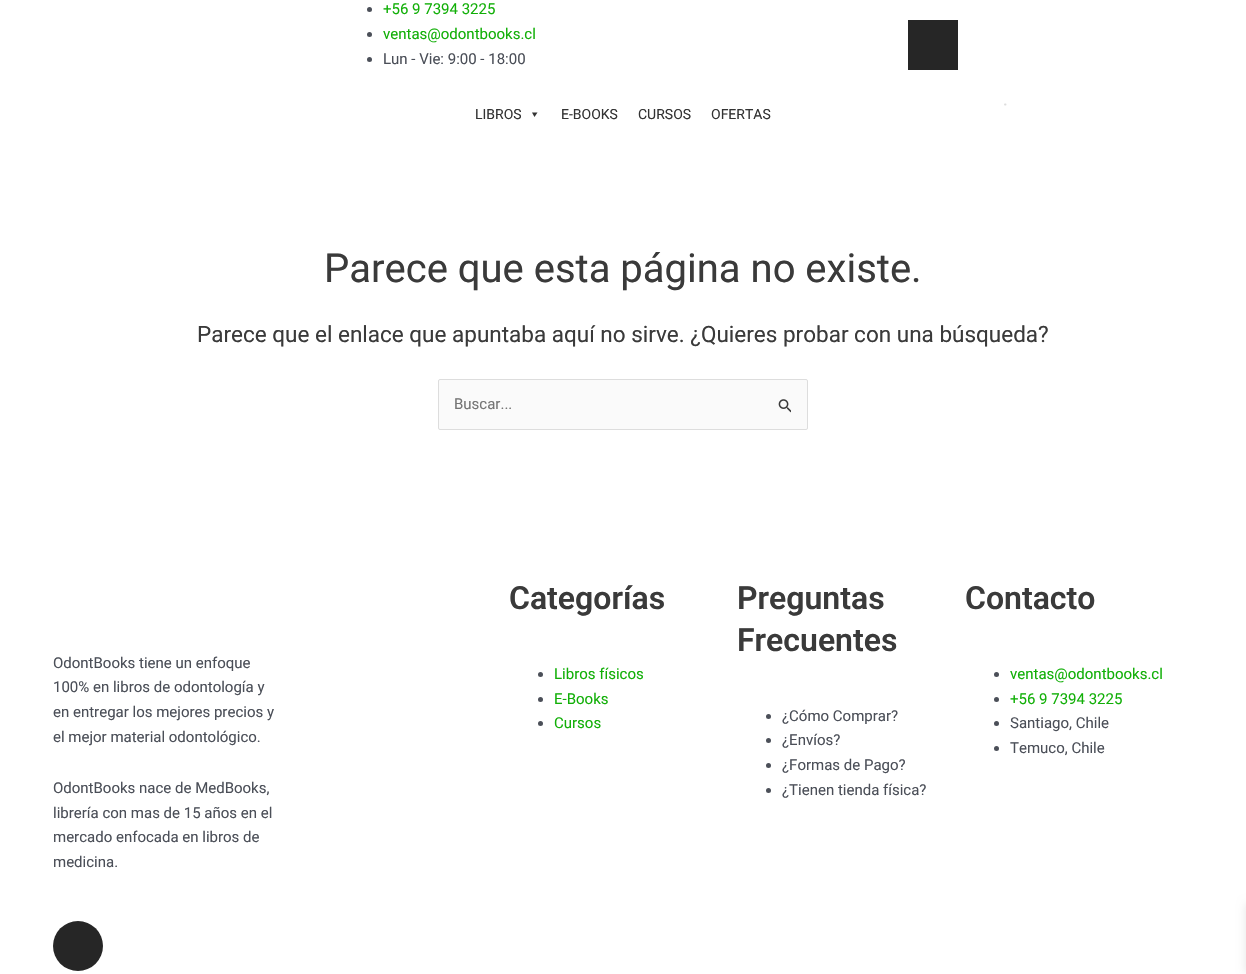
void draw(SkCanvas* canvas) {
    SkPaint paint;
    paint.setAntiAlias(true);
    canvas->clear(0xFFFFFFFF);
    paint.setColor(0xFF4B4F58);
    canvas->drawCircle(369.5f, 9.5f, 2.5f, paint);
    SkFont font1(fontMgr->matchFamilyStyle("Roboto", SkFontStyle::Normal()), 15);
    font1.setSubpixel(true);
    paint.setColor(0xFF11AF07);
    canvas->drawString("+56 9 7394 3225", 383, 14, font1, paint);
    paint.setColor(0xFF4B4F58);
    canvas->drawCircle(369.5f, 34.5f, 2.5f, paint);
    paint.setColor(0xFF11AF07);
    canvas->drawString("ventas@odontbooks.cl", 383, 39, font1, paint);
    paint.setColor(0xFF4B4F58);
    canvas->drawCircle(369.5f, 59.5f, 2.5f, paint);
    canvas->drawString("Lun - Vie: 9:00 - 18:00", 383, 64, font1, paint);
    paint.setColor(0xFF262626);
    canvas->drawRect(SkRect::MakeXYWH(908, 20, 50, 50), paint);
    paint.setStyle(SkPaint::kStroke_Style);
    paint.setStrokeWidth(1.9f);
    paint.setStrokeCap(SkPaint::kRound_Cap);
    paint.setColor(0xFFDDDDDD);
    canvas->drawPath(SkPathBuilder().moveTo(1005, 104.5f).lineTo(1005.5f, 104.5f).detach(), paint);
    SkFont font2(fontMgr->matchFamilyStyle("Roboto", SkFontStyle::Normal()), 14);
    font2.setSubpixel(true);
    paint.setStyle(SkPaint::kFill_Style);
    paint.setColor(0xFF333333);
    canvas->drawString("LIBROS", 475, 119, font2, paint);
    canvas->drawPath(SkPathBuilder().moveTo(537.5f, 112.5f).lineTo(534.5f, 117).lineTo(532, 112.5f).close().detach(), paint);
    canvas->drawString("E-BOOKS", 561, 119, font2, paint);
    canvas->drawString("CURSOS", 638, 119, font2, paint);
    canvas->drawString("OFERTAS", 711, 119, font2, paint);
    SkFont font3(fontMgr->matchFamilyStyle("Roboto", SkFontStyle::Normal()), 40);
    font3.setSubpixel(true);
    paint.setColor(0xFF3A3A3A);
    canvas->drawString("Parece que esta página no existe.", 324, 282, font3, paint);
    SkFont font4(fontMgr->matchFamilyStyle("Roboto", SkFontStyle::Normal()), 22.5f);
    font4.setSubpixel(true);
    canvas->drawString("Parece que el enlace que apuntaba aquí no sirve. ¿Quieres probar con una búsqueda?", 197, 342, font4, paint);
    paint.setColor(0xFFFAFAFA);
    canvas->drawRoundRect(SkRect::MakeXYWH(438.5f, 379.5f, 369, 50), 1.5f, 1.5f, paint);
    paint.setStyle(SkPaint::kStroke_Style);
    paint.setStrokeWidth(1);
    paint.setStrokeCap(SkPaint::kButt_Cap);
    paint.setColor(0xFFDDDDDD);
    canvas->drawRoundRect(SkRect::MakeXYWH(438.5f, 379.5f, 369, 50), 1.5f, 1.5f, paint);
    paint.setStyle(SkPaint::kFill_Style);
    paint.setColor(0xFF757575);
    canvas->drawString("Buscar...", 454, 409, font1, paint);
    canvas->drawImageRect(SkImages::DeferredFromEncodedData(SkData::MakeFromFileName("img1.png")), SkRect::MakeXYWH(778, 399, 13, 14), SkSamplingOptions());
    paint.setColor(0xFF4B4F58);
    canvas->drawString("OdontBooks tiene un enfoque", 53, 668, font1, paint);
    canvas->drawString("100% en libros de odontología y", 53, 692, font1, paint);
    canvas->drawString("en entregar los mejores precios y", 53, 717, font1, paint);
    canvas->drawString("el mejor material odontológico.", 53, 742, font1, paint);
    canvas->drawString("OdontBooks nace de MedBooks,", 53, 793, font1, paint);
    canvas->drawString("librería con mas de 15 años en el", 53, 818, font1, paint);
    canvas->drawString("mercado enfocada en libros de", 53, 842, font1, paint);
    canvas->drawString("medicina.", 53, 867, font1, paint);
    paint.setColor(0xFF262626);
    canvas->drawCircle(78, 946, 25, paint);
    SkFont font5(fontMgr->matchFamilyStyle("Roboto", SkFontStyle(600, SkFontStyle::kNormal_Width, SkFontStyle::kUpright_Slant)), 32);
    font5.setSubpixel(true);
    paint.setColor(0xFF3A3A3A);
    canvas->drawString("Categorías", 509, 609, font5, paint);
    paint.setColor(0xFF4B4F58);
    canvas->drawCircle(540.5f, 674.5f, 2.5f, paint);
    paint.setColor(0xFF11AF07);
    canvas->drawString("Libros físicos", 554, 679, font1, paint);
    paint.setColor(0xFF4B4F58);
    canvas->drawCircle(540.5f, 699.5f, 2.5f, paint);
    paint.setColor(0xFF11AF07);
    canvas->drawString("E-Books", 554, 704, font1, paint);
    paint.setColor(0xFF4B4F58);
    canvas->drawCircle(540.5f, 723.5f, 2.5f, paint);
    paint.setColor(0xFF11AF07);
    canvas->drawString("Cursos", 554, 728, font1, paint);
    paint.setColor(0xFF3A3A3A);
    canvas->drawString("Preguntas", 737, 609, font5, paint);
    canvas->drawString("Frecuentes", 737, 651, font5, paint);
    paint.setColor(0xFF4B4F58);
    canvas->drawCircle(768.5f, 716.5f, 2.5f, paint);
    canvas->drawString("¿Cómo Comprar?", 782, 721, font1, paint);
    canvas->drawCircle(768.5f, 740.5f, 2.5f, paint);
    canvas->drawString("¿Envíos?", 782, 745, font1, paint);
    canvas->drawCircle(768.5f, 765.5f, 2.5f, paint);
    canvas->drawString("¿Formas de Pago?", 782, 770, font1, paint);
    canvas->drawCircle(768.5f, 790.5f, 2.5f, paint);
    canvas->drawString("¿Tienen tienda física?", 782, 795, font1, paint);
    paint.setColor(0xFF3A3A3A);
    canvas->drawString("Contacto", 965, 609, font5, paint);
    paint.setColor(0xFF4B4F58);
    canvas->drawCircle(996.5f, 674.5f, 2.5f, paint);
    paint.setColor(0xFF11AF07);
    canvas->drawString("ventas@odontbooks.cl", 1010, 679, font1, paint);
    paint.setColor(0xFF4B4F58);
    canvas->drawCircle(996.5f, 699.5f, 2.5f, paint);
    paint.setColor(0xFF11AF07);
    canvas->drawString("+56 9 7394 3225", 1010, 704, font1, paint);
    paint.setColor(0xFF4B4F58);
    canvas->drawCircle(996.5f, 723.5f, 2.5f, paint);
    canvas->drawString("Santiago, Chile", 1010, 728, font1, paint);
    canvas->drawCircle(996.5f, 748.5f, 2.5f, paint);
    canvas->drawString("Temuco, Chile", 1010, 753, font1, paint);
    paint.setColor(0x1A000000);
    paint.setMaskFilter(SkMaskFilter::MakeBlur(kNormal_SkBlurStyle, 5));
    canvas->drawRect(SkRect::MakeXYWH(1246, 904, 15, 69), paint);
    paint.setMaskFilter(nullptr);
}
